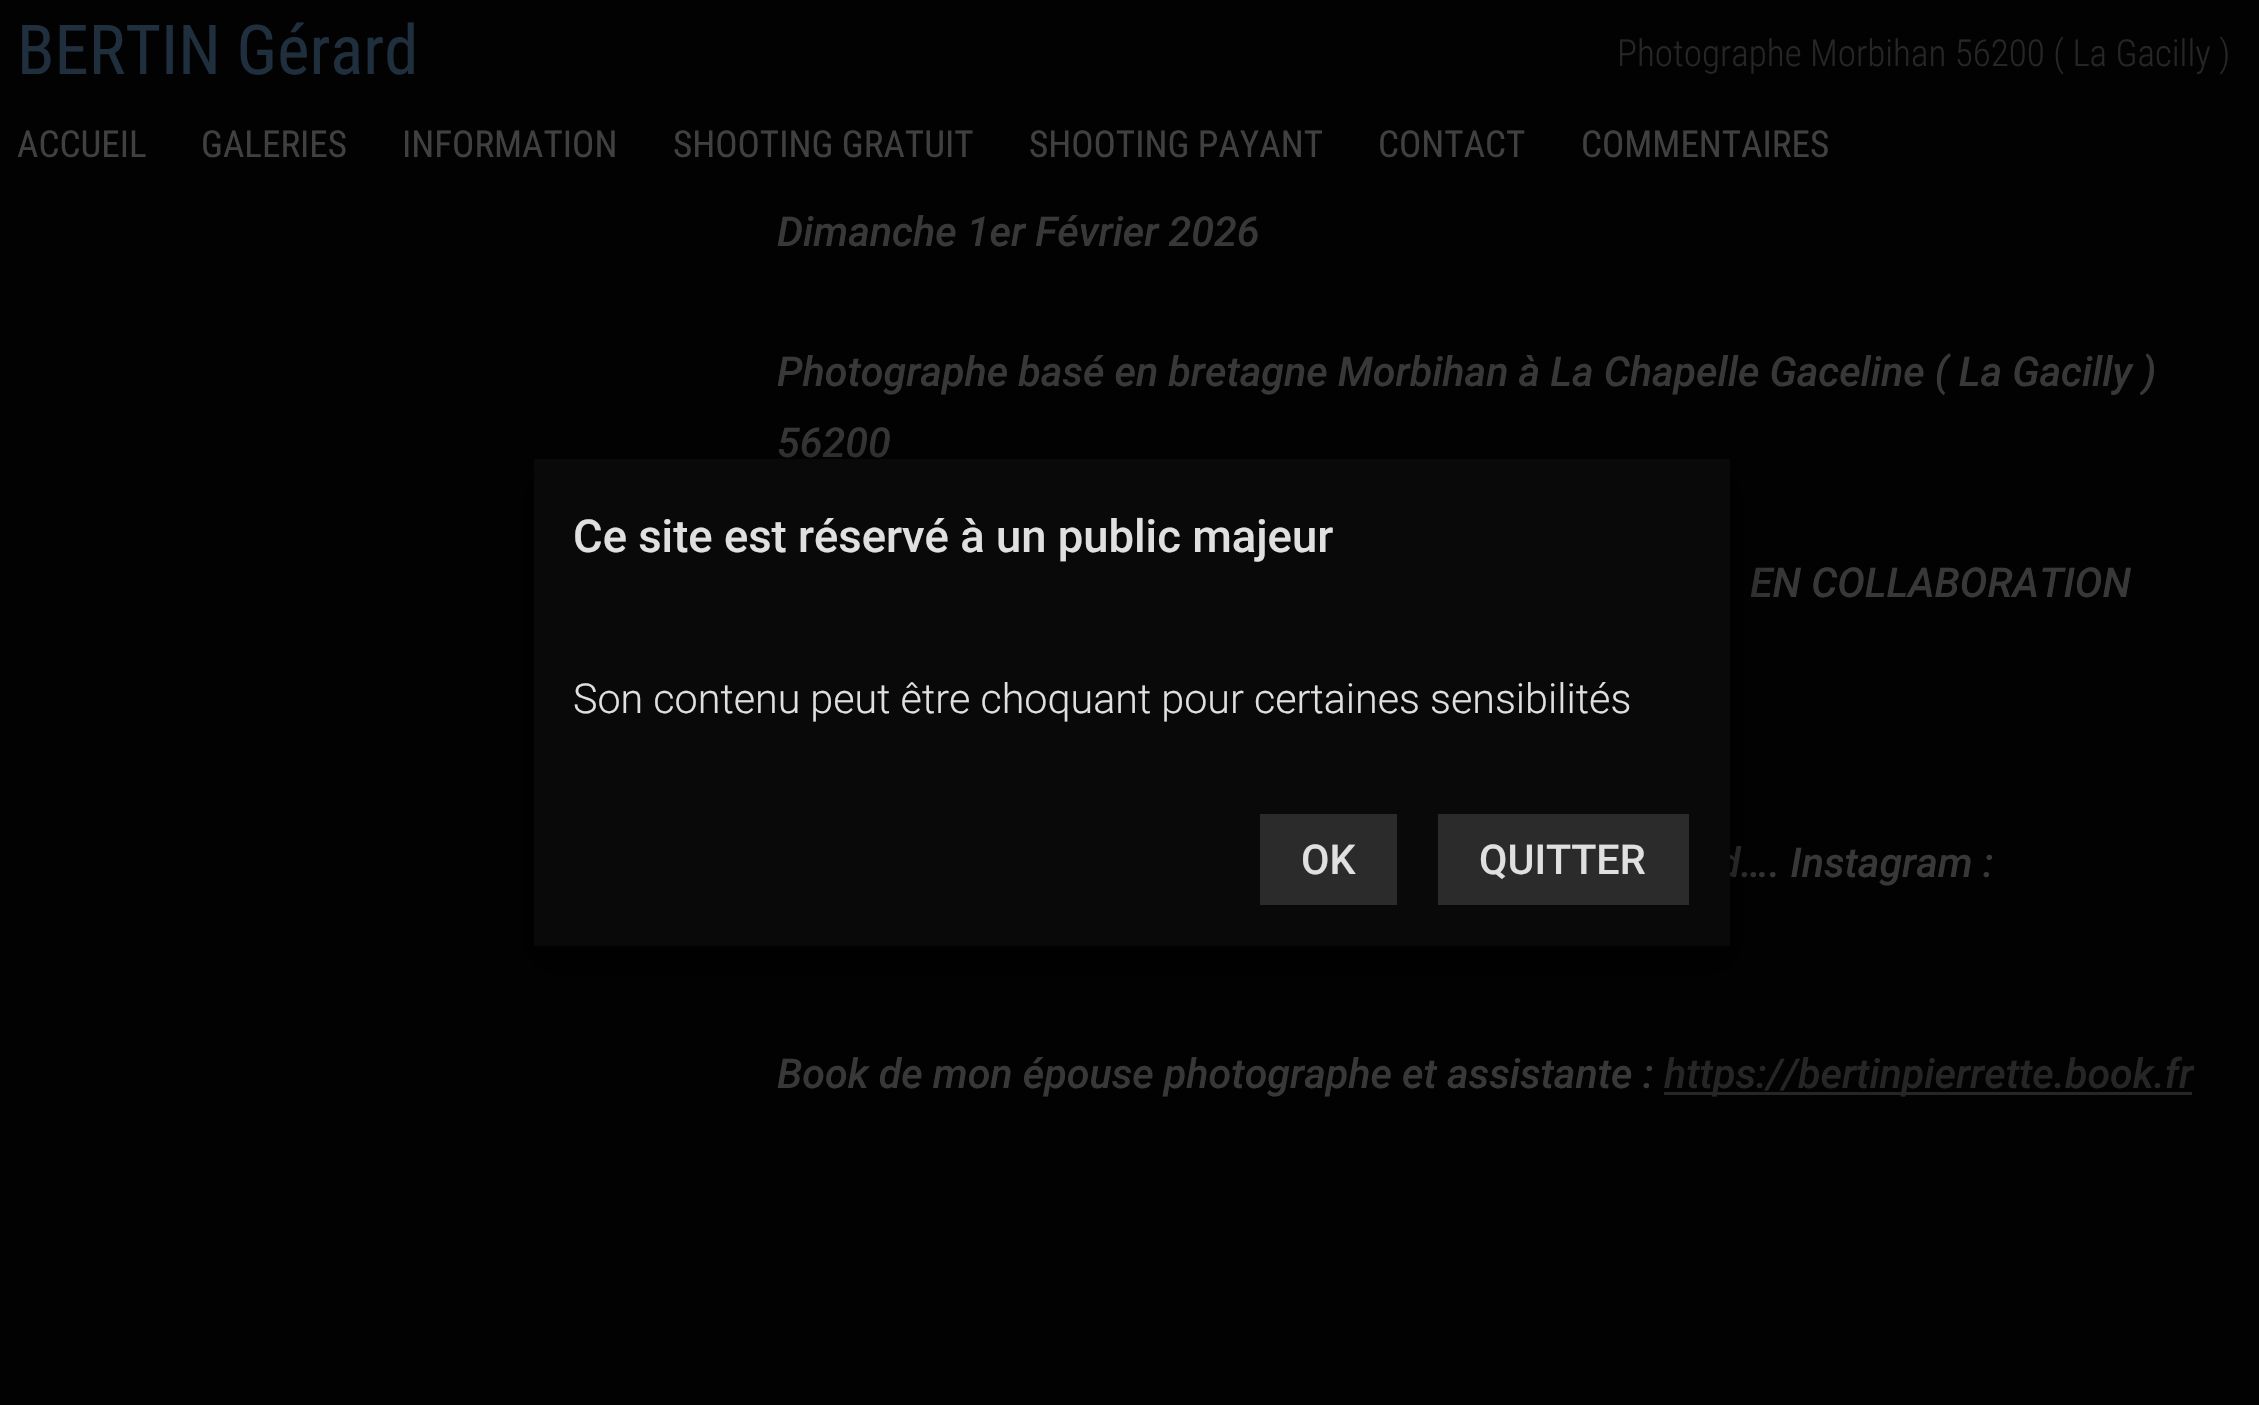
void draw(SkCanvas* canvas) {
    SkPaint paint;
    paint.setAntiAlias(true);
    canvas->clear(0xFF020202);
    SkFont font1(fontMgr->matchFamilyStyle("Roboto Condensed", SkFontStyle::Normal()), 68.75f);
    font1.setSubpixel(true);
    paint.setColor(0xFF202F3E);
    canvas->drawString("BERTIN Gérard", 17, 74, font1, paint);
    SkFont font2(fontMgr->matchFamilyStyle("Roboto Condensed", SkFontStyle(300, SkFontStyle::kNormal_Width, SkFontStyle::kUpright_Slant)), 37.1f);
    font2.setSubpixel(true);
    paint.setColor(0xFF262626);
    canvas->drawString("Photographe Morbihan 56200 ( La Gacilly )", 1617, 66, font2, paint);
    SkFont font3(fontMgr->matchFamilyStyle("Roboto Condensed", SkFontStyle::Normal()), 37.1f);
    font3.setSubpixel(true);
    paint.setColor(0xFF404040);
    canvas->drawString("ACCUEIL", 17, 157, font3, paint);
    canvas->drawString("GALERIES", 201, 157, font3, paint);
    canvas->drawString("INFORMATION", 402, 157, font3, paint);
    canvas->drawString("SHOOTING GRATUIT", 673, 157, font3, paint);
    canvas->drawString("SHOOTING PAYANT", 1029, 157, font3, paint);
    canvas->drawString("CONTACT", 1378, 157, font3, paint);
    canvas->drawString("COMMENTAIRES", 1581, 157, font3, paint);
    SkFont font4(fontMgr->matchFamilyStyle("Roboto", SkFontStyle(500, SkFontStyle::kNormal_Width, SkFontStyle::kItalic_Slant)), 41.25f);
    font4.setSubpixel(true);
    paint.setColor(0xFF383838);
    canvas->drawString("Dimanche 1er Février 2026", 777, 246, font4, paint);
    canvas->drawString("Photographe basé en bretagne Morbihan à La Chapelle Gaceline ( La Gacilly )", 777, 386, font4, paint);
    canvas->drawString("56200", 777, 457, font4, paint);
    canvas->drawString("EN COLLABORATION", 1750, 597, font4, paint);
    canvas->drawString("d…. Instagram :", 1718, 877, font4, paint);
    canvas->drawString("Book de mon épouse photographe et assistante :", 777, 1088, font4, paint);
    paint.setColor(0xFF262626);
    canvas->drawRect(SkRect::MakeXYWH(1664, 1092, 528, 3), paint);
    canvas->drawString("https://bertinpierrette.book.fr", 1664, 1088, font4, paint);
    paint.setColor(0x80000000);
    paint.setMaskFilter(SkMaskFilter::MakeBlur(kNormal_SkBlurStyle, 20.5f));
    canvas->drawRect(SkRect::MakeXYWH(523, 465, 1221, 511), paint);
    paint.setMaskFilter(nullptr);
    paint.setColor(0xFF090909);
    canvas->drawRect(SkRect::MakeXYWH(534, 459, 1196, 487), paint);
    SkFont font5(fontMgr->matchFamilyStyle("Roboto", SkFontStyle(500, SkFontStyle::kNormal_Width, SkFontStyle::kUpright_Slant)), 45.4f);
    font5.setSubpixel(true);
    paint.setColor(0xFFE0E0E0);
    canvas->drawString("Ce site est réservé à un public majeur", 573, 552, font5, paint);
    SkFont font6(fontMgr->matchFamilyStyle("Roboto", SkFontStyle(300, SkFontStyle::kNormal_Width, SkFontStyle::kUpright_Slant)), 41.25f);
    font6.setSubpixel(true);
    canvas->drawString("Son contenu peut être choquant pour certaines sensibilités", 573, 713, font6, paint);
    paint.setColor(0xFF2B2B2B);
    canvas->drawRect(SkRect::MakeXYWH(1260, 814, 137, 91), paint);
    SkFont font7(fontMgr->matchFamilyStyle("Roboto", SkFontStyle(500, SkFontStyle::kNormal_Width, SkFontStyle::kUpright_Slant)), 41.25f);
    font7.setSubpixel(true);
    paint.setColor(0xFFE0E0E0);
    canvas->drawString("OK", 1301, 874, font7, paint);
    paint.setColor(0xFF2B2B2B);
    canvas->drawRect(SkRect::MakeXYWH(1438, 814, 251, 91), paint);
    paint.setColor(0xFFE0E0E0);
    canvas->drawString("QUITTER", 1479, 874, font7, paint);
}
